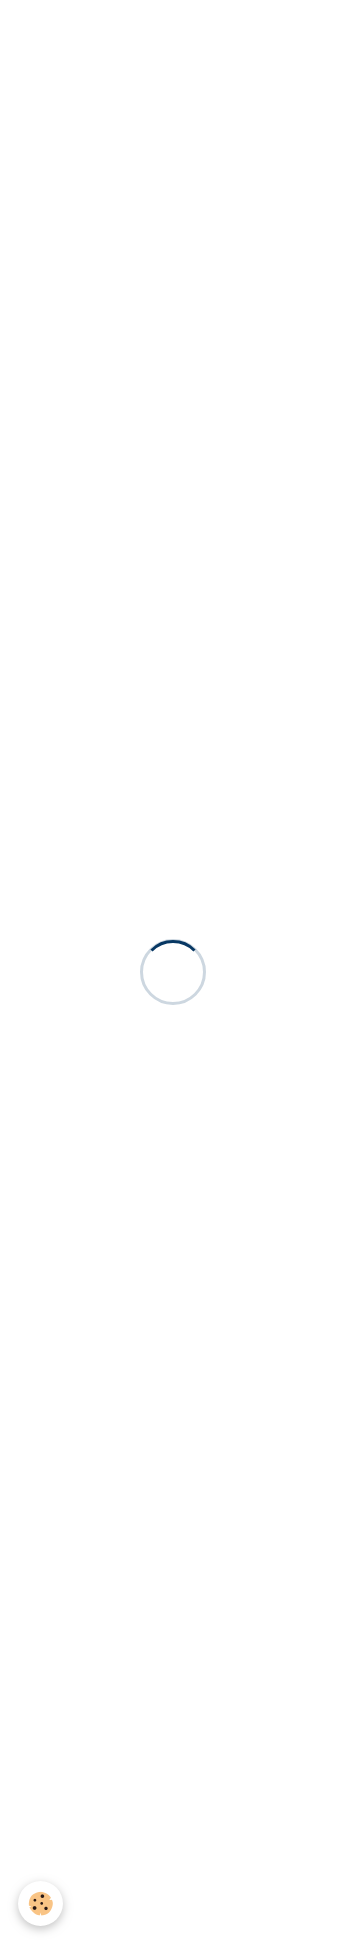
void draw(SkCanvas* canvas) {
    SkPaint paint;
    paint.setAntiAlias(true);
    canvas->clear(0xFFFFFFFF);
    paint.setStyle(SkPaint::kStroke_Style);
    paint.setStrokeWidth(3);
    paint.setColor(0xFF073763);
    canvas->drawPath(SkPathBuilder().moveTo(151.5f, 950.5f).cubicTo(163, 938.5f, 183, 938.5f, 194.5f, 950.5f).detach(), paint);
    paint.setColor(0x33073763);
    canvas->drawCircle(173, 972, 31.5f, paint);
    paint.setStyle(SkPaint::kFill_Style);
    paint.setColor(0x3D000000);
    paint.setMaskFilter(SkMaskFilter::MakeBlur(kNormal_SkBlurStyle, 5));
    canvas->drawRoundRect(SkRect::MakeXYWH(18, 1884, 45, 45), 22.5f, 22.5f, paint);
    paint.setMaskFilter(nullptr);
    paint.setColor(0xFFFFFFFF);
    canvas->drawCircle(40.5f, 1903.5f, 22.5f, paint);
    canvas->drawImageRect(SkImages::DeferredFromEncodedData(SkData::MakeFromFileName("img1.png")), SkRect::MakeXYWH(28, 1891, 25, 25), SkSamplingOptions());
}
